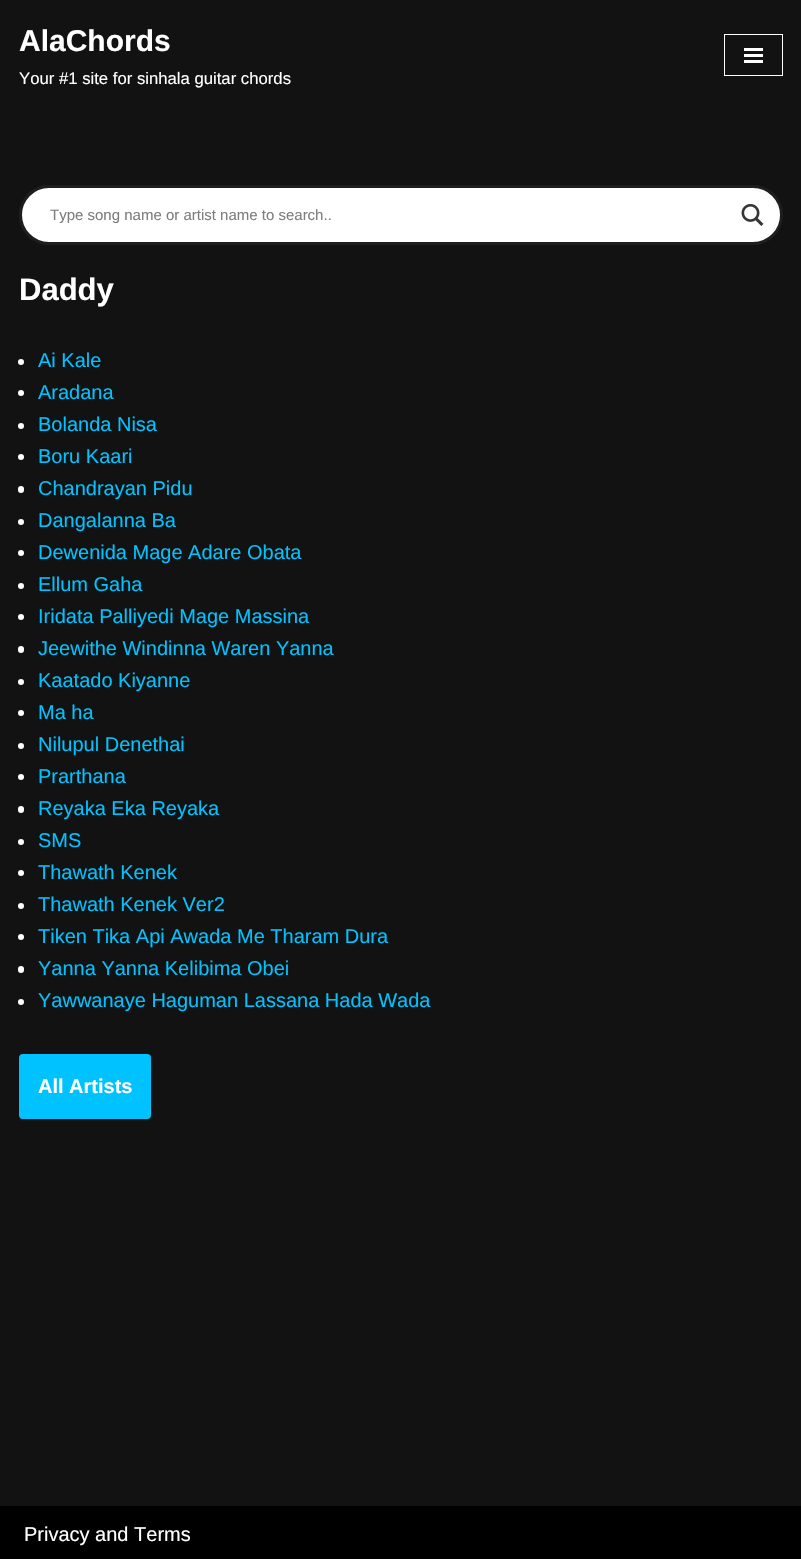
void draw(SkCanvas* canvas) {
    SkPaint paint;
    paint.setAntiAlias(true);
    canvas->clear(0xFF121212);
    SkFont font1(fontMgr->matchFamilyStyle("Liberation Sans", SkFontStyle::Bold()), 30);
    font1.setSubpixel(true);
    paint.setColor(0xFFFFFFFF);
    canvas->drawString("AlaChords", 19, 51, font1, paint);
    SkFont font2(fontMgr->matchFamilyStyle("Liberation Sans", SkFontStyle::Normal()), 16.7f);
    font2.setSubpixel(true);
    canvas->drawString("Your #1 site for sinhala guitar chords", 19, 84, font2, paint);
    paint.setStyle(SkPaint::kStroke_Style);
    paint.setStrokeWidth(1);
    canvas->drawRect(SkRect::MakeXYWH(724.5f, 34.5f, 58, 41), paint);
    paint.setStyle(SkPaint::kFill_Style);
    canvas->drawRect(SkRect::MakeXYWH(744, 48, 19, 3), paint);
    canvas->drawRect(SkRect::MakeXYWH(744, 54, 19, 3), paint);
    canvas->drawRect(SkRect::MakeXYWH(744, 60, 19, 3), paint);
    canvas->drawRoundRect(SkRect::MakeXYWH(20.5f, 186.5f, 761, 57), 28.5f, 28.5f, paint);
    paint.setStyle(SkPaint::kStroke_Style);
    paint.setStrokeWidth(3);
    paint.setColor(0xFF1E1E1E);
    canvas->drawRoundRect(SkRect::MakeXYWH(20.5f, 186.5f, 761, 57), 28.5f, 28.5f, paint);
    SkFont font3(fontMgr->matchFamilyStyle("Liberation Sans", SkFontStyle::Normal()), 15);
    font3.setSubpixel(true);
    paint.setStyle(SkPaint::kFill_Style);
    paint.setColor(0xFF7D7D7D);
    canvas->drawString("Type song name or artist name to search..", 50, 220, font3, paint);
    canvas->drawImageRect(SkImages::DeferredFromEncodedData(SkData::MakeFromFileName("img1.png")), SkRect::MakeXYWH(741, 203, 23, 23), SkSamplingOptions());
    SkFont font4(fontMgr->matchFamilyStyle("Liberation Sans", SkFontStyle::Bold()), 31);
    font4.setSubpixel(true);
    paint.setColor(0xFFFFFFFF);
    canvas->drawString("Daddy", 19, 300, font4, paint);
    canvas->drawCircle(21, 362, 3, paint);
    SkFont font5(fontMgr->matchFamilyStyle("Liberation Sans", SkFontStyle::Normal()), 20);
    font5.setSubpixel(true);
    paint.setColor(0xFF00C2FF);
    canvas->drawString("Ai Kale", 38, 367, font5, paint);
    paint.setColor(0xFFFFFFFF);
    canvas->drawCircle(21, 393, 3, paint);
    paint.setColor(0xFF00C2FF);
    canvas->drawString("Aradana", 38, 399, font5, paint);
    paint.setColor(0xFFFFFFFF);
    canvas->drawCircle(21, 426, 3, paint);
    paint.setColor(0xFF00C2FF);
    canvas->drawString("Bolanda Nisa", 38, 431, font5, paint);
    paint.setColor(0xFFFFFFFF);
    canvas->drawCircle(21, 457, 3, paint);
    paint.setColor(0xFF00C2FF);
    canvas->drawString("Boru Kaari", 38, 463, font5, paint);
    paint.setColor(0xFFFFFFFF);
    canvas->drawRoundRect(SkRect::MakeXYWH(18, 486, 6, 7), 3, 3, paint);
    paint.setColor(0xFF00C2FF);
    canvas->drawString("Chandrayan Pidu", 38, 495, font5, paint);
    paint.setColor(0xFFFFFFFF);
    canvas->drawCircle(21, 522, 3, paint);
    paint.setColor(0xFF00C2FF);
    canvas->drawString("Dangalanna Ba", 38, 527, font5, paint);
    paint.setColor(0xFFFFFFFF);
    canvas->drawCircle(21, 553, 3, paint);
    paint.setColor(0xFF00C2FF);
    canvas->drawString("Dewenida Mage Adare Obata", 38, 559, font5, paint);
    paint.setColor(0xFFFFFFFF);
    canvas->drawCircle(21, 586, 3, paint);
    paint.setColor(0xFF00C2FF);
    canvas->drawString("Ellum Gaha", 38, 591, font5, paint);
    paint.setColor(0xFFFFFFFF);
    canvas->drawCircle(21, 617, 3, paint);
    paint.setColor(0xFF00C2FF);
    canvas->drawString("Iridata Palliyedi Mage Massina", 38, 623, font5, paint);
    paint.setColor(0xFFFFFFFF);
    canvas->drawRoundRect(SkRect::MakeXYWH(18, 646, 6, 7), 3, 3, paint);
    paint.setColor(0xFF00C2FF);
    canvas->drawString("Jeewithe Windinna Waren Yanna", 38, 655, font5, paint);
    paint.setColor(0xFFFFFFFF);
    canvas->drawCircle(21, 682, 3, paint);
    paint.setColor(0xFF00C2FF);
    canvas->drawString("Kaatado Kiyanne", 38, 687, font5, paint);
    paint.setColor(0xFFFFFFFF);
    canvas->drawCircle(21, 713, 3, paint);
    paint.setColor(0xFF00C2FF);
    canvas->drawString("Ma ha", 38, 719, font5, paint);
    paint.setColor(0xFFFFFFFF);
    canvas->drawCircle(21, 746, 3, paint);
    paint.setColor(0xFF00C2FF);
    canvas->drawString("Nilupul Denethai", 38, 751, font5, paint);
    paint.setColor(0xFFFFFFFF);
    canvas->drawCircle(21, 777, 3, paint);
    paint.setColor(0xFF00C2FF);
    canvas->drawString("Prarthana", 38, 783, font5, paint);
    paint.setColor(0xFFFFFFFF);
    canvas->drawRoundRect(SkRect::MakeXYWH(18, 806, 6, 7), 3, 3, paint);
    paint.setColor(0xFF00C2FF);
    canvas->drawString("Reyaka Eka Reyaka", 38, 815, font5, paint);
    paint.setColor(0xFFFFFFFF);
    canvas->drawCircle(21, 842, 3, paint);
    paint.setColor(0xFF00C2FF);
    canvas->drawString("SMS", 38, 847, font5, paint);
    paint.setColor(0xFFFFFFFF);
    canvas->drawCircle(21, 873, 3, paint);
    paint.setColor(0xFF00C2FF);
    canvas->drawString("Thawath Kenek", 38, 879, font5, paint);
    paint.setColor(0xFFFFFFFF);
    canvas->drawCircle(21, 906, 3, paint);
    paint.setColor(0xFF00C2FF);
    canvas->drawString("Thawath Kenek Ver2", 38, 911, font5, paint);
    paint.setColor(0xFFFFFFFF);
    canvas->drawCircle(21, 937, 3, paint);
    paint.setColor(0xFF00C2FF);
    canvas->drawString("Tiken Tika Api Awada Me Tharam Dura", 38, 943, font5, paint);
    paint.setColor(0xFFFFFFFF);
    canvas->drawRoundRect(SkRect::MakeXYWH(18, 966, 6, 7), 3, 3, paint);
    paint.setColor(0xFF00C2FF);
    canvas->drawString("Yanna Yanna Kelibima Obei", 38, 975, font5, paint);
    paint.setColor(0xFFFFFFFF);
    canvas->drawCircle(21, 1002, 3, paint);
    paint.setColor(0xFF00C2FF);
    canvas->drawString("Yawwanaye Haguman Lassana Hada Wada", 38, 1007, font5, paint);
    canvas->drawRoundRect(SkRect::MakeXYWH(19, 1054, 132, 65), 4, 4, paint);
    SkFont font6(fontMgr->matchFamilyStyle("Liberation Sans", SkFontStyle::Bold()), 20);
    font6.setSubpixel(true);
    paint.setColor(0xFFFFFFFF);
    canvas->drawString("All Artists", 38, 1093, font6, paint);
    paint.setColor(0xFF000000);
    canvas->drawRect(SkRect::MakeXYWH(0, 1506, 801, 53), paint);
    paint.setColor(0xFFFFFFFF);
    canvas->drawString("Privacy and Terms", 24, 1541, font5, paint);
}
